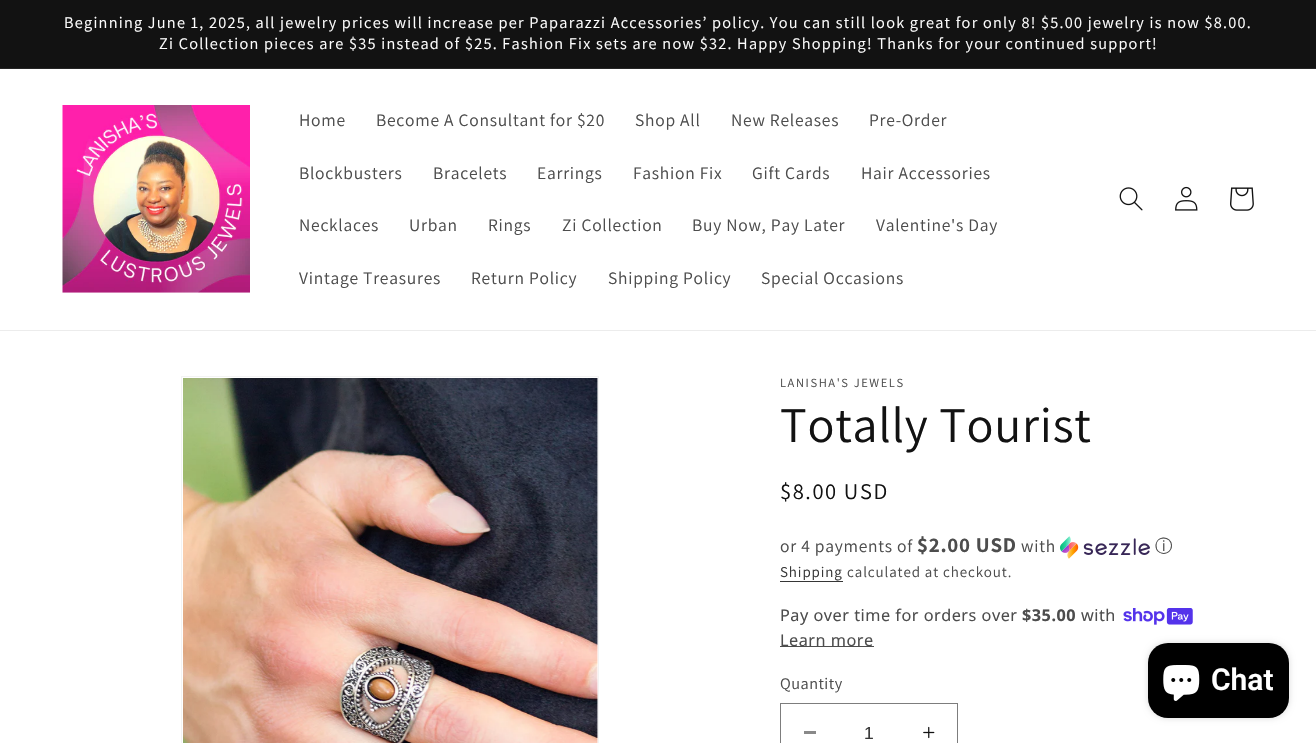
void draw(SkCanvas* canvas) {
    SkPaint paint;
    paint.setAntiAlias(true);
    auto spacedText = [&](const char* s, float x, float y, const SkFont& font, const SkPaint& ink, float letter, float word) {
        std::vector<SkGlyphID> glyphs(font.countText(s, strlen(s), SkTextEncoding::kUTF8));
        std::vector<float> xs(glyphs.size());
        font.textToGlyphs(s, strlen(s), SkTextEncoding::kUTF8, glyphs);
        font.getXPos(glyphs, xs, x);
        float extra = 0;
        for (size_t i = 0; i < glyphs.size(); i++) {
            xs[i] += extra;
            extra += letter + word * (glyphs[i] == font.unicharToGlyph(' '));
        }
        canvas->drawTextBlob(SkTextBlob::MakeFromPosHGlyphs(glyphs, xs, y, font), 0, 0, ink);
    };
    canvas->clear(0xFFFFFFFF);
    paint.setColor(0xFF121212);
    canvas->drawRect(SkRect::MakeXYWH(0, 0, 1316, 68), paint);
    paint.setColor(0xFF252525);
    canvas->drawRect(SkRect::MakeXYWH(0, 68, 1316, 1), paint);
    SkFont font1(fontMgr->matchFamilyStyle("Assistant", SkFontStyle::Normal()), 16.25f);
    font1.setSubpixel(true);
    paint.setColor(0xFFFFFFFF);
    spacedText("Beginning June 1, 2025, all jewelry prices will increase per Paparazzi Accessories’ policy. You can still look great for only 8! $5.00 jewelry is now $8.00.", 64, 28, font1, paint, 1.25f, 0);
    spacedText("Zi Collection pieces are $35 instead of $25. Fashion Fix sets are now $32. Happy Shopping! Thanks for your continued support!", 159, 49, font1, paint, 1.25f, 0);
    paint.setColor(0xFFECECEC);
    canvas->drawRect(SkRect::MakeXYWH(0, 330, 1316, 1), paint);
    canvas->drawImageRect(SkImages::DeferredFromEncodedData(SkData::MakeFromFileName("img1.png")), SkRect::MakeXYWH(62, 105, 188, 188), SkSamplingOptions());
    SkFont font2(fontMgr->matchFamilyStyle("Assistant", SkFontStyle::Normal()), 17.5f);
    font2.setSubpixel(true);
    paint.setColor(0xFF4D4D4D);
    spacedText("Home", 299, 126, font2, paint, 0.75f, 0);
    spacedText("Become A Consultant for $20", 376, 126, font2, paint, 0.75f, 0);
    spacedText("Shop All", 635, 126, font2, paint, 0.75f, 0);
    spacedText("New Releases", 731, 126, font2, paint, 0.75f, 0);
    spacedText("Pre-Order", 869, 126, font2, paint, 0.75f, 0);
    spacedText("Blockbusters", 299, 179, font2, paint, 0.75f, 0);
    spacedText("Bracelets", 433, 179, font2, paint, 0.75f, 0);
    spacedText("Earrings", 537, 179, font2, paint, 0.75f, 0);
    spacedText("Fashion Fix", 633, 179, font2, paint, 0.75f, 0);
    spacedText("Gift Cards", 752, 179, font2, paint, 0.75f, 0);
    spacedText("Hair Accessories", 861, 179, font2, paint, 0.75f, 0);
    spacedText("Necklaces", 299, 231, font2, paint, 0.75f, 0);
    spacedText("Urban", 409, 231, font2, paint, 0.75f, 0);
    spacedText("Rings", 488, 231, font2, paint, 0.75f, 0);
    spacedText("Zi Collection", 562, 231, font2, paint, 0.75f, 0);
    spacedText("Buy Now, Pay Later", 692, 231, font2, paint, 0.75f, 0);
    spacedText("Valentine's Day", 876, 231, font2, paint, 0.75f, 0);
    spacedText("Vintage Treasures", 299, 284, font2, paint, 0.75f, 0);
    spacedText("Return Policy", 471, 284, font2, paint, 0.75f, 0);
    spacedText("Shipping Policy", 608, 284, font2, paint, 0.75f, 0);
    spacedText("Special Occasions", 761, 284, font2, paint, 0.75f, 0);
    canvas->drawImageRect(SkImages::DeferredFromEncodedData(SkData::MakeFromFileName("img2.png")), SkRect::MakeXYWH(1119, 187, 24, 24), SkSamplingOptions());
    canvas->drawImageRect(SkImages::DeferredFromEncodedData(SkData::MakeFromFileName("img3.png")), SkRect::MakeXYWH(1175, 186, 23, 25), SkSamplingOptions());
    canvas->drawImageRect(SkImages::DeferredFromEncodedData(SkData::MakeFromFileName("img4.png")), SkRect::MakeXYWH(1230, 187, 24, 24), SkSamplingOptions());
    paint.setStyle(SkPaint::kStroke_Style);
    paint.setStrokeWidth(1);
    paint.setColor(0xFFF3F3F3);
    canvas->drawRect(SkRect::MakeXYWH(181.5f, 376.5f, 417, 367), paint);
    canvas->drawImageRect(SkImages::DeferredFromEncodedData(SkData::MakeFromFileName("img5.png")), SkRect::MakeXYWH(183, 378, 415, 365), SkSamplingOptions());
    SkFont font3(fontMgr->matchFamilyStyle("Assistant", SkFontStyle::Normal()), 12.5f);
    font3.setSubpixel(true);
    paint.setStyle(SkPaint::kFill_Style);
    paint.setColor(0xFF4D4D4D);
    spacedText("LANISHA'S JEWELS", 780, 387, font3, paint, 1.6f, 0);
    SkFont font4(fontMgr->matchFamilyStyle("Assistant", SkFontStyle::Normal()), 50);
    font4.setSubpixel(true);
    paint.setColor(0xFF121212);
    spacedText("Totally Tourist", 780, 442, font4, paint, 0.75f, 0);
    SkFont font5(fontMgr->matchFamilyStyle("Assistant", SkFontStyle::Normal()), 22.5f);
    font5.setSubpixel(true);
    spacedText("$8.00 USD", 780, 499, font5, paint, 1.6f, 0);
    paint.setColor(0xFF4D4D4D);
    spacedText("or 4 payments of", 780, 552, font2, paint, 0.75f, 0);
    SkFont font6(fontMgr->matchFamilyStyle("Assistant", SkFontStyle::Bold()), 21);
    font6.setSubpixel(true);
    spacedText("$2.00 USD", 917, 552, font6, paint, 0.75f, 0);
    spacedText("with", 1021, 552, font2, paint, 0.75f, 0);
    canvas->drawImageRect(SkImages::DeferredFromEncodedData(SkData::MakeFromFileName("img6.png")), SkRect::MakeXYWH(1060, 536, 90, 23), SkSamplingOptions());
    SkFont font7(fontMgr->matchFamilyStyle("WenQuanYi Zen Hei", SkFontStyle(500, SkFontStyle::kNormal_Width, SkFontStyle::kUpright_Slant)), 17.5f);
    font7.setSubpixel(true);
    spacedText("ⓘ", 1155, 552, font7, paint, 0.75f, 0);
    SkFont font8(fontMgr->matchFamilyStyle("Assistant", SkFontStyle::Normal()), 15);
    font8.setSubpixel(true);
    paint.setColor(0xFF363636);
    spacedText("Shipping", 780, 577, font8, paint, 0.9f, 0);
    canvas->drawRect(SkRect::MakeXYWH(780, 581, 63, 1), paint);
    paint.setColor(0xFF4D4D4D);
    spacedText("calculated at checkout.", 847, 577, font8, paint, 0.9f, 0);
    SkFont font9(fontMgr->matchFamilyStyle("Noto Sans", SkFontStyle::Normal()), 16.25f);
    font9.setSubpixel(true);
    spacedText("Pay over time for orders over", 780, 621, font9, paint, 0.5f, 0);
    SkFont font10(fontMgr->matchFamilyStyle("Noto Sans", SkFontStyle::Bold()), 16.25f);
    font10.setSubpixel(true);
    spacedText("$35.00", 1022, 621, font10, paint, 0.5f, 0);
    spacedText("with", 1081, 621, font9, paint, 0.5f, 0);
    canvas->drawImageRect(SkImages::DeferredFromEncodedData(SkData::MakeFromFileName("img7.png")), SkRect::MakeXYWH(1123, 608, 70, 17), SkSamplingOptions());
    canvas->drawRect(SkRect::MakeXYWH(780, 646, 94, 1), paint);
    spacedText("Learn more", 780, 646, font9, paint, 0.5f, 0);
    spacedText("Quantity", 780, 689, font1, paint, 0.5f, 0);
    paint.setColor(0xFF898989);
    canvas->drawRect(SkRect::MakeXYWH(804, 731, 12, 3), paint);
    canvas->drawImageRect(SkImages::DeferredFromEncodedData(SkData::MakeFromFileName("img8.png")), SkRect::MakeXYWH(923, 726, 12, 13), SkSamplingOptions());
    paint.setStyle(SkPaint::kStroke_Style);
    paint.setColor(0xFF7D7D7D);
    canvas->drawRect(SkRect::MakeXYWH(780.5f, 703.5f, 177, 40), paint);
    SkFont font11(fontMgr->matchFamilyStyle("Liberation Sans", SkFontStyle::Normal()), 17.5f);
    font11.setSubpixel(true);
    paint.setStyle(SkPaint::kFill_Style);
    paint.setColor(0xFF363636);
    canvas->drawString("1", 864, 739, font11, paint);
    paint.setColor(0x26000000);
    paint.setMaskFilter(SkMaskFilter::MakeBlur(kNormal_SkBlurStyle, 3));
    canvas->drawRoundRect(SkRect::MakeXYWH(1148, 643, 141, 75), 20, 20, paint);
    paint.setMaskFilter(nullptr);
    paint.setColor(0xFF000000);
    canvas->drawRoundRect(SkRect::MakeXYWH(1148, 643, 141, 75), 20, 20, paint);
    canvas->drawImageRect(SkImages::DeferredFromEncodedData(SkData::MakeFromFileName("img9.png")), SkRect::MakeXYWH(1163, 665, 37, 36), SkSamplingOptions());
    SkFont font12(fontMgr->matchFamilyStyle("Roboto", SkFontStyle(600, SkFontStyle::kNormal_Width, SkFontStyle::kUpright_Slant)), 30);
    font12.setSubpixel(true);
    paint.setColor(0xFFFFFFFF);
    canvas->drawString("Chat", 1211, 690, font12, paint);
}
